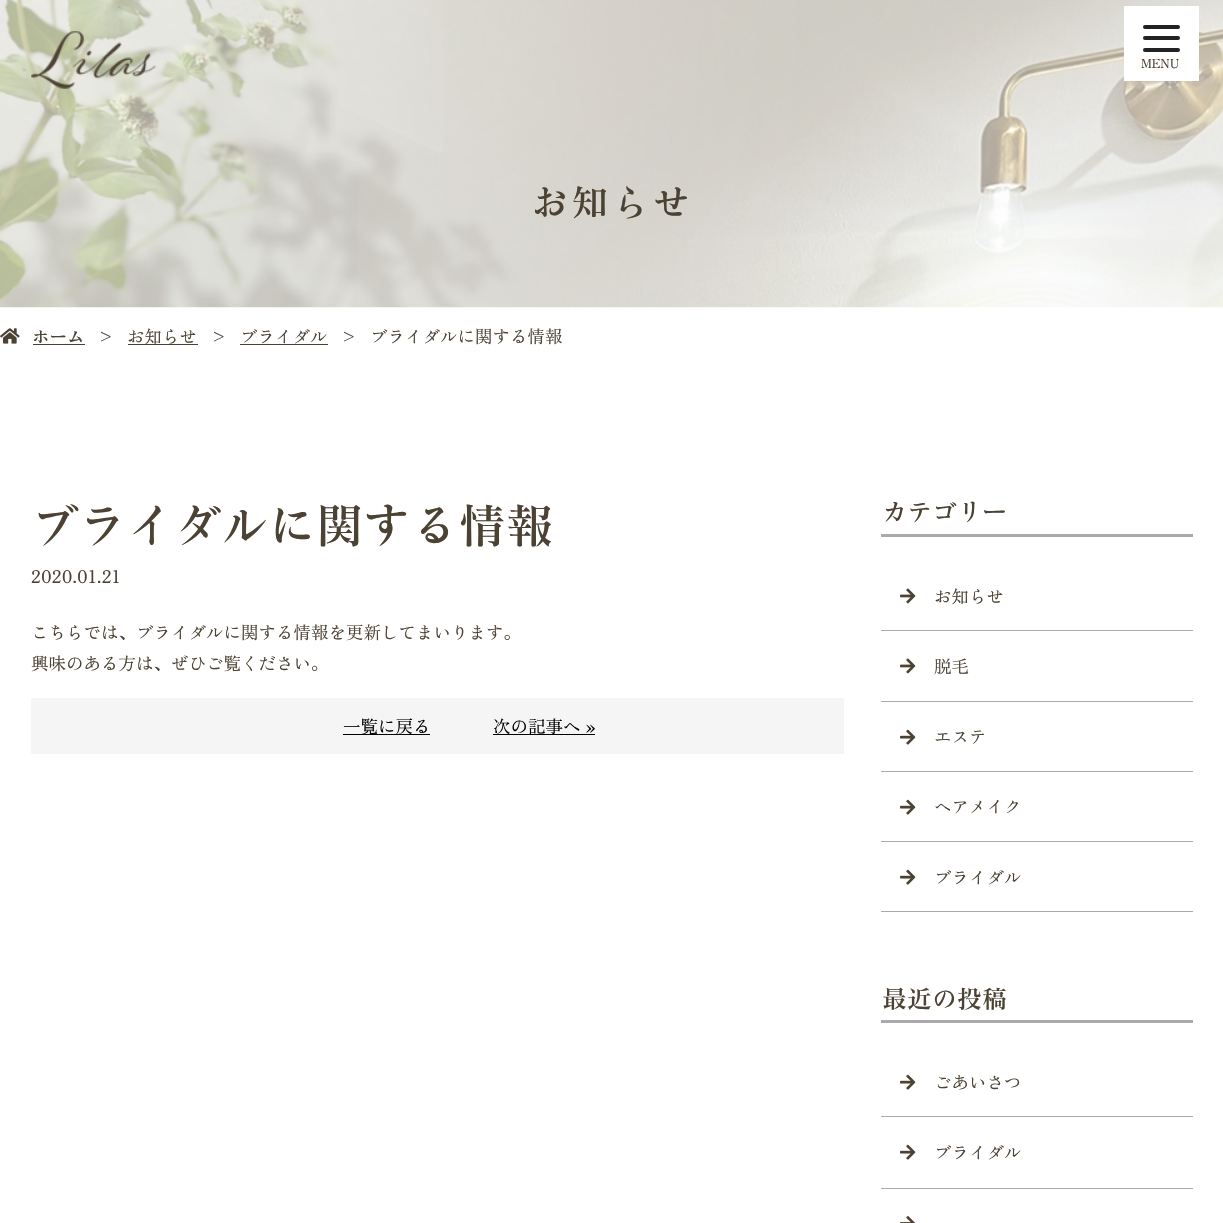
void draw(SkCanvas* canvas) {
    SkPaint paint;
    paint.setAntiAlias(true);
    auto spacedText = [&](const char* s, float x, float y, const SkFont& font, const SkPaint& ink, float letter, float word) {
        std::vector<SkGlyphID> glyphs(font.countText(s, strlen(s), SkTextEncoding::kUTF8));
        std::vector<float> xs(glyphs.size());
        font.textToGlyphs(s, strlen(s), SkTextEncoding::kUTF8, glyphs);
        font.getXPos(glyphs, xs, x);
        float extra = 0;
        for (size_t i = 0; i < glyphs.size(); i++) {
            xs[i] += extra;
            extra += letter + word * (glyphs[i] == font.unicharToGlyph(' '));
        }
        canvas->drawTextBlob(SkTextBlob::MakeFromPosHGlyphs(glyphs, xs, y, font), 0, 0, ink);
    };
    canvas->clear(0xFFFFFFFF);
    canvas->drawImageRect(SkImages::DeferredFromEncodedData(SkData::MakeFromFileName("img2.png")), SkRect::MakeXYWH(0, 0, 1223, 308), SkSamplingOptions());
    paint.setColor(0xFFFFFFFF);
    canvas->drawRect(SkRect::MakeXYWH(1124, 6, 75, 75), paint);
    paint.setColor(0xFF222222);
    canvas->drawRoundRect(SkRect::MakeXYWH(1143, 25, 37, 4), 2, 2, paint);
    canvas->drawRoundRect(SkRect::MakeXYWH(1143, 36, 37, 4), 2, 2, paint);
    canvas->drawRoundRect(SkRect::MakeXYWH(1143, 48, 37, 4), 2, 2, paint);
    SkFont font1(fontMgr->matchFamilyStyle("Zen Old Mincho", SkFontStyle::Normal()), 12.5f);
    font1.setSubpixel(true);
    paint.setColor(0xFF4C4234);
    canvas->drawString("MENU", 1141, 68, font1, paint);
    canvas->drawImageRect(SkImages::DeferredFromEncodedData(SkData::MakeFromFileName("img1.png")), SkRect::MakeXYWH(31, 31, 126, 58), SkSamplingOptions());
    SkFont font2(fontMgr->matchFamilyStyle("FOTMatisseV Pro", SkFontStyle(600, SkFontStyle::kNormal_Width, SkFontStyle::kUpright_Slant)), 37.5f);
    font2.setSubpixel(true);
    spacedText("お知らせ", 531, 216, font2, paint, 3, 0);
    canvas->drawImageRect(SkImages::DeferredFromEncodedData(SkData::MakeFromFileName("img3.png")), SkRect::MakeXYWH(0, 328, 20, 16), SkSamplingOptions());
    SkFont font3(fontMgr->matchFamilyStyle("Zen Old Mincho", SkFontStyle::Bold()), 17.5f);
    font3.setSubpixel(true);
    canvas->drawString("ホーム", 32, 343, font3, paint);
    canvas->drawRect(SkRect::MakeXYWH(33, 344, 52, 1), paint);
    SkFont font4(fontMgr->matchFamilyStyle("Zen Old Mincho", SkFontStyle::Normal()), 17.5f);
    font4.setSubpixel(true);
    canvas->drawString(">", 97, 343, font4, paint);
    canvas->drawRect(SkRect::MakeXYWH(128, 344, 70, 1), paint);
    canvas->drawString("お知らせ", 127, 343, font4, paint);
    canvas->drawString(">", 210, 343, font4, paint);
    canvas->drawString("ブライダル", 240, 343, font4, paint);
    canvas->drawRect(SkRect::MakeXYWH(240, 344, 88, 1), paint);
    canvas->drawString(">", 340, 343, font4, paint);
    canvas->drawString("ブライダルに関する情報", 370, 343, font4, paint);
    SkFont font5(fontMgr->matchFamilyStyle("FOTMatisseV Pro", SkFontStyle(600, SkFontStyle::kNormal_Width, SkFontStyle::kUpright_Slant)), 47.5f);
    font5.setSubpixel(true);
    canvas->drawString("ブライダルに関する情報", 31, 543, font5, paint);
    canvas->drawString("2020.01.21", 31, 583, font4, paint);
    canvas->drawString("こちらでは、ブライダルに関する情報を更新してまいります。", 31, 639, font4, paint);
    canvas->drawString("興味のある方は、ぜひご覧ください。", 31, 670, font4, paint);
    paint.setColor(0xFFF5F5F5);
    canvas->drawRect(SkRect::MakeXYWH(31, 698, 813, 56), paint);
    paint.setColor(0xFF000000);
    canvas->drawRect(SkRect::MakeXYWH(343, 734, 87, 1), paint);
    canvas->drawString("一覧に戻る", 343, 733, font4, paint);
    canvas->drawRect(SkRect::MakeXYWH(493, 734, 102, 1), paint);
    canvas->drawString("次の記事へ »", 493, 733, font4, paint);
    paint.setColor(0xFFACA9AE);
    canvas->drawRect(SkRect::MakeXYWH(881, 534, 312, 3), paint);
    SkFont font6(fontMgr->matchFamilyStyle("FOTMatisseV Pro", SkFontStyle(600, SkFontStyle::kNormal_Width, SkFontStyle::kUpright_Slant)), 25);
    font6.setSubpixel(true);
    paint.setColor(0xFF4C4234);
    canvas->drawString("カテゴリー", 882, 521, font6, paint);
    paint.setColor(0xFFACA9AE);
    canvas->drawRect(SkRect::MakeXYWH(881, 630, 312, 1), paint);
    canvas->drawImageRect(SkImages::DeferredFromEncodedData(SkData::MakeFromFileName("img4.png")), SkRect::MakeXYWH(900, 588, 16, 16), SkSamplingOptions());
    paint.setColor(0xFF4C4234);
    canvas->drawString("お知らせ", 934, 603, font4, paint);
    paint.setColor(0xFFACA9AE);
    canvas->drawRect(SkRect::MakeXYWH(881, 701, 312, 1), paint);
    canvas->drawImageRect(SkImages::DeferredFromEncodedData(SkData::MakeFromFileName("img4.png")), SkRect::MakeXYWH(900, 658, 16, 16), SkSamplingOptions());
    paint.setColor(0xFF4C4234);
    canvas->drawString("脱毛", 934, 673, font4, paint);
    paint.setColor(0xFFACA9AE);
    canvas->drawRect(SkRect::MakeXYWH(881, 771, 312, 1), paint);
    canvas->drawImageRect(SkImages::DeferredFromEncodedData(SkData::MakeFromFileName("img5.png")), SkRect::MakeXYWH(900, 729, 16, 16), SkSamplingOptions());
    paint.setColor(0xFF4C4234);
    canvas->drawString("エステ", 934, 743, font4, paint);
    paint.setColor(0xFFACA9AE);
    canvas->drawRect(SkRect::MakeXYWH(881, 841, 312, 1), paint);
    canvas->drawImageRect(SkImages::DeferredFromEncodedData(SkData::MakeFromFileName("img5.png")), SkRect::MakeXYWH(900, 799, 16, 16), SkSamplingOptions());
    paint.setColor(0xFF4C4234);
    canvas->drawString("ヘアメイク", 934, 813, font4, paint);
    paint.setColor(0xFFACA9AE);
    canvas->drawRect(SkRect::MakeXYWH(881, 911, 312, 1), paint);
    canvas->drawImageRect(SkImages::DeferredFromEncodedData(SkData::MakeFromFileName("img5.png")), SkRect::MakeXYWH(900, 869, 16, 16), SkSamplingOptions());
    paint.setColor(0xFF4C4234);
    canvas->drawString("ブライダル", 934, 884, font4, paint);
    paint.setColor(0xFFACA9AE);
    canvas->drawRect(SkRect::MakeXYWH(881, 1020, 312, 3), paint);
    paint.setColor(0xFF4C4234);
    canvas->drawString("最近の投稿", 882, 1008, font6, paint);
    paint.setColor(0xFFACA9AE);
    canvas->drawRect(SkRect::MakeXYWH(881, 1116, 312, 1), paint);
    canvas->drawImageRect(SkImages::DeferredFromEncodedData(SkData::MakeFromFileName("img5.png")), SkRect::MakeXYWH(900, 1074, 16, 16), SkSamplingOptions());
    paint.setColor(0xFF4C4234);
    canvas->drawString("ごあいさつ", 934, 1089, font4, paint);
    paint.setColor(0xFFACA9AE);
    canvas->drawRect(SkRect::MakeXYWH(881, 1188, 312, 1), paint);
    canvas->drawImageRect(SkImages::DeferredFromEncodedData(SkData::MakeFromFileName("img5.png")), SkRect::MakeXYWH(900, 1144, 16, 16), SkSamplingOptions());
    paint.setColor(0xFF4C4234);
    canvas->drawString("ブライダル", 934, 1159, font4, paint);
    canvas->drawImageRect(SkImages::DeferredFromEncodedData(SkData::MakeFromFileName("img6.png")), SkRect::MakeXYWH(900, 1216, 15, 7), SkSamplingOptions());
}
